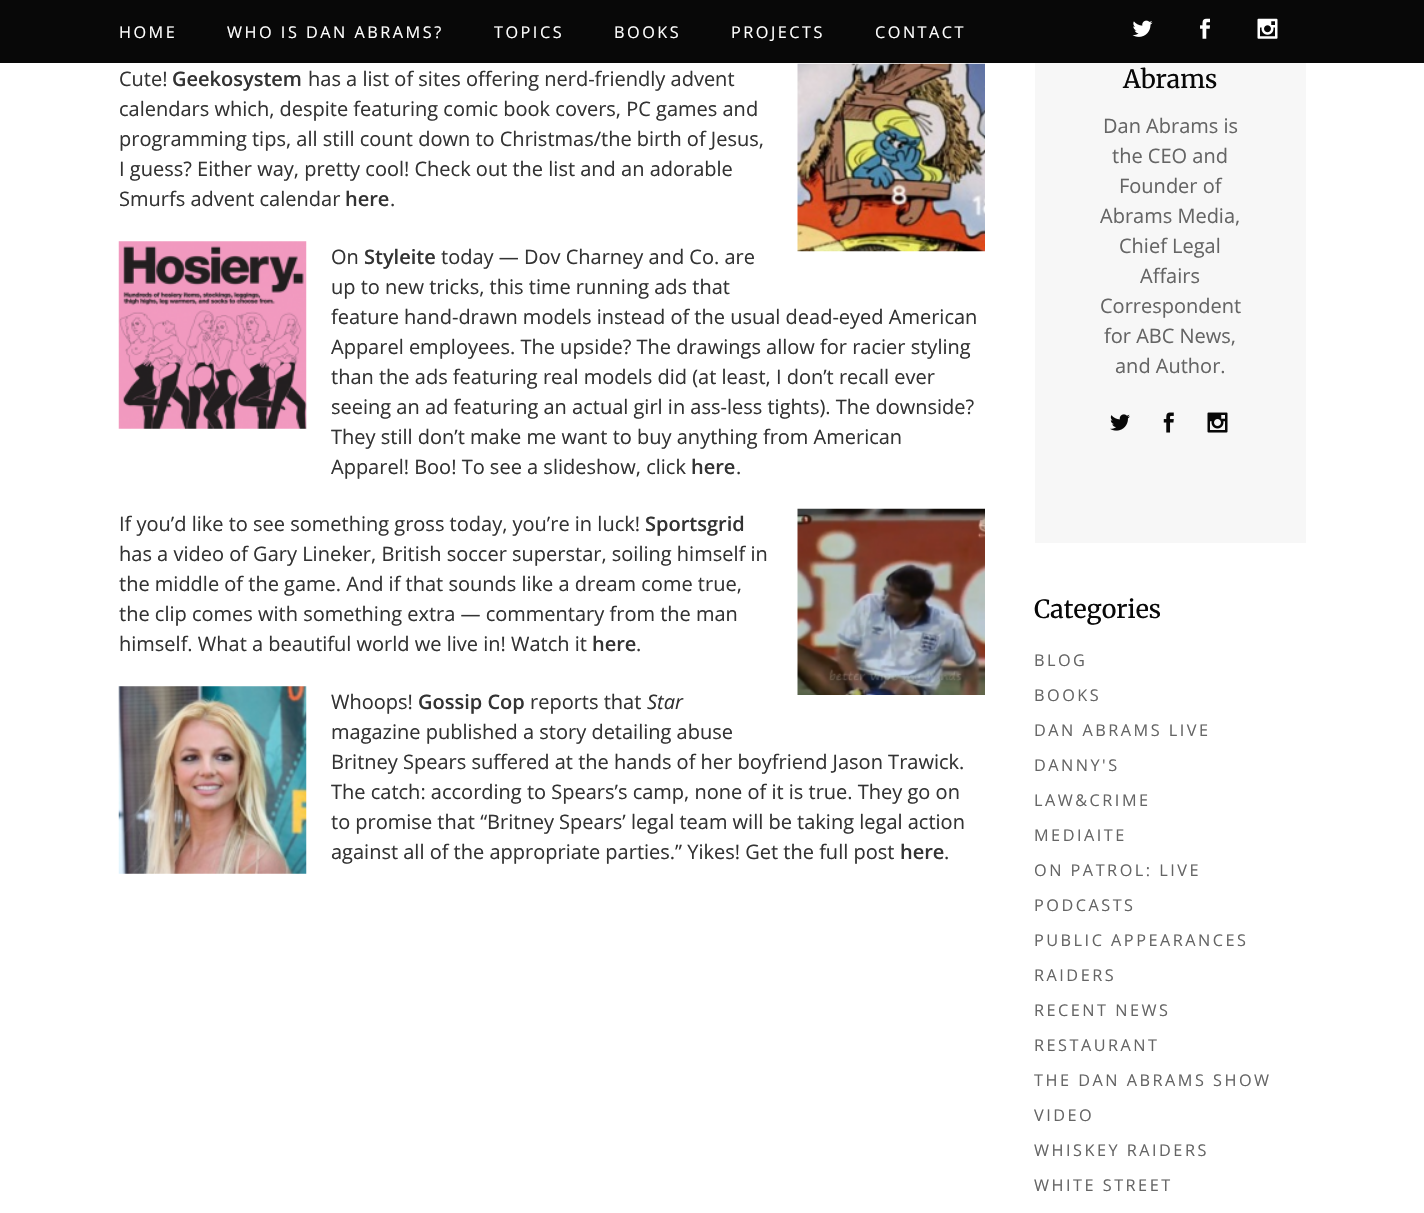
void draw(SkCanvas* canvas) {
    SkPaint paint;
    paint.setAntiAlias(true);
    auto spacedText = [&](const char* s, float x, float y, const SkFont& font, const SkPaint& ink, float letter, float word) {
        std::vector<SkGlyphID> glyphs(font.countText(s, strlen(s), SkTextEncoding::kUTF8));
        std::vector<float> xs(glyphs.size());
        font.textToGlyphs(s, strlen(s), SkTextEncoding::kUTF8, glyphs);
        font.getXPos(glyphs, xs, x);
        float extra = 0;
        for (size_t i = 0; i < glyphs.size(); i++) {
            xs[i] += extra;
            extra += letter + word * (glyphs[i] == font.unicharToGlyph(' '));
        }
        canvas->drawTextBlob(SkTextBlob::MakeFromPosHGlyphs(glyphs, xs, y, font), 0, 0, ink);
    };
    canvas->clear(0xFFFFFFFF);
    paint.setColor(0xFF080808);
    canvas->drawRect(SkRect::MakeXYWH(0, 0, 1424, 63), paint);
    SkFont font1(fontMgr->matchFamilyStyle("Open Sans", SkFontStyle::Normal()), 16.25f);
    font1.setSubpixel(true);
    paint.setColor(0xFFFFFFFF);
    spacedText("HOME", 119, 38, font1, paint, 2.5f, 0);
    spacedText("WHO IS DAN ABRAMS?", 227, 38, font1, paint, 2.5f, 0);
    spacedText("TOPICS", 494, 38, font1, paint, 2.5f, 0);
    spacedText("BOOKS", 614, 38, font1, paint, 2.5f, 0);
    spacedText("PROJECTS", 731, 38, font1, paint, 2.5f, 0);
    spacedText("CONTACT", 875, 38, font1, paint, 2.5f, 0);
    canvas->drawImageRect(SkImages::DeferredFromEncodedData(SkData::MakeFromFileName("img1.png")), SkRect::MakeXYWH(1132, 20, 21, 17), SkSamplingOptions());
    canvas->drawImageRect(SkImages::DeferredFromEncodedData(SkData::MakeFromFileName("img2.png")), SkRect::MakeXYWH(1200, 18, 10, 21), SkSamplingOptions());
    canvas->drawImageRect(SkImages::DeferredFromEncodedData(SkData::MakeFromFileName("img3.png")), SkRect::MakeXYWH(1257, 18, 21, 21), SkSamplingOptions());
    SkFont font2(fontMgr->matchFamilyStyle("Open Sans", SkFontStyle::Normal()), 20);
    font2.setSubpixel(true);
    paint.setColor(0xFF333333);
    canvas->drawString("Cute!", 119, 86, font2, paint);
    SkFont font3(fontMgr->matchFamilyStyle("Open Sans", SkFontStyle(600, SkFontStyle::kNormal_Width, SkFontStyle::kUpright_Slant)), 20);
    font3.setSubpixel(true);
    canvas->drawString("Geekosystem", 172, 86, font3, paint);
    canvas->drawString("has a list of sites offering nerd-friendly advent", 308, 86, font2, paint);
    canvas->drawImageRect(SkImages::DeferredFromEncodedData(SkData::MakeFromFileName("img4.png")), SkRect::MakeXYWH(797, 63, 188, 189), SkSamplingOptions());
    canvas->drawString("calendars which, despite featuring comic book covers, PC games and", 119, 116, font2, paint);
    canvas->drawString("programming tips, all still count down to Christmas/the birth of Jesus,", 119, 146, font2, paint);
    canvas->drawString("I guess? Either way, pretty cool! Check out the list and an adorable", 119, 176, font2, paint);
    canvas->drawString("Smurfs advent calendar", 119, 206, font2, paint);
    canvas->drawString("here", 345, 206, font3, paint);
    canvas->drawString(".", 390, 206, font2, paint);
    canvas->drawImageRect(SkImages::DeferredFromEncodedData(SkData::MakeFromFileName("img5.png")), SkRect::MakeXYWH(118, 241, 189, 188), SkSamplingOptions());
    canvas->drawString("On", 331, 264, font2, paint);
    canvas->drawString("Styleite", 364, 264, font3, paint);
    canvas->drawString("today — Dov Charney and Co. are", 441, 264, font2, paint);
    canvas->drawString("up to new tricks, this time running ads that", 331, 294, font2, paint);
    canvas->drawString("feature hand-drawn models instead of the usual dead-eyed American", 331, 324, font2, paint);
    canvas->drawString("Apparel employees. The upside? The drawings allow for racier styling", 331, 354, font2, paint);
    canvas->drawString("than the ads featuring real models did (at least, I don’t recall ever", 331, 384, font2, paint);
    canvas->drawString("seeing an ad featuring an actual girl in ass-less tights). The downside?", 331, 414, font2, paint);
    canvas->drawString("They still don’t make me want to buy anything from American", 331, 444, font2, paint);
    canvas->drawString("Apparel! Boo! To see a slideshow, click", 331, 474, font2, paint);
    canvas->drawString("here", 691, 474, font3, paint);
    canvas->drawString(".", 736, 474, font2, paint);
    canvas->drawString("If you’d like to see something gross today, you’re in luck!", 119, 531, font2, paint);
    canvas->drawString("Sportsgrid", 645, 531, font3, paint);
    canvas->drawImageRect(SkImages::DeferredFromEncodedData(SkData::MakeFromFileName("img6.png")), SkRect::MakeXYWH(797, 508, 188, 187), SkSamplingOptions());
    canvas->drawString("has a video of Gary Lineker, British soccer superstar, soiling himself in", 119, 561, font2, paint);
    canvas->drawString("the middle of the game. And if that sounds like a dream come true,", 119, 591, font2, paint);
    canvas->drawString("the clip comes with something extra — commentary from the man", 119, 621, font2, paint);
    canvas->drawString("himself. What a beautiful world we live in! Watch it", 119, 651, font2, paint);
    canvas->drawString("here", 592, 651, font3, paint);
    canvas->drawString(".", 636, 651, font2, paint);
    canvas->drawImageRect(SkImages::DeferredFromEncodedData(SkData::MakeFromFileName("img7.png")), SkRect::MakeXYWH(118, 686, 189, 188), SkSamplingOptions());
    canvas->drawString("Whoops!", 331, 709, font2, paint);
    canvas->drawString("Gossip Cop", 418, 709, font3, paint);
    canvas->drawString("reports that", 530, 709, font2, paint);
    SkFont font4(fontMgr->matchFamilyStyle("Open Sans", SkFontStyle::Italic()), 20);
    font4.setSubpixel(true);
    canvas->drawString("Star", 647, 709, font4, paint);
    canvas->drawString("magazine published a story detailing abuse", 331, 739, font2, paint);
    canvas->drawString("Britney Spears suffered at the hands of her boyfriend Jason Trawick.", 331, 769, font2, paint);
    canvas->drawString("The catch: according to Spears’s camp, none of it is true. They go on", 331, 799, font2, paint);
    canvas->drawString("to promise that “Britney Spears’ legal team will be taking legal action", 331, 829, font2, paint);
    canvas->drawString("against all of the appropriate parties.” Yikes! Get the full post", 331, 859, font2, paint);
    canvas->drawString("here", 900, 859, font3, paint);
    canvas->drawString(".", 944, 859, font2, paint);
    paint.setColor(0xFFF7F7F7);
    canvas->drawRect(SkRect::MakeXYWH(1035, 63, 271, 480), paint);
    SkFont font5(fontMgr->matchFamilyStyle("Merriweather", SkFontStyle::Normal()), 25);
    font5.setSubpixel(true);
    paint.setColor(0xFF080808);
    canvas->drawString("Abrams", 1123, 88, font5, paint);
    paint.setColor(0xFF656565);
    canvas->drawString("Dan Abrams is", 1103, 133, font2, paint);
    canvas->drawString("the CEO and", 1112, 163, font2, paint);
    canvas->drawString("Founder of", 1119, 193, font2, paint);
    canvas->drawString("Abrams Media,", 1100, 223, font2, paint);
    canvas->drawString("Chief Legal", 1119, 253, font2, paint);
    canvas->drawString("Affairs", 1140, 283, font2, paint);
    canvas->drawString("Correspondent", 1100, 313, font2, paint);
    canvas->drawString("for ABC News,", 1104, 343, font2, paint);
    canvas->drawString("and Author.", 1115, 373, font2, paint);
    canvas->drawImageRect(SkImages::DeferredFromEncodedData(SkData::MakeFromFileName("img8.png")), SkRect::MakeXYWH(1110, 414, 20, 17), SkSamplingOptions());
    canvas->drawImageRect(SkImages::DeferredFromEncodedData(SkData::MakeFromFileName("img9.png")), SkRect::MakeXYWH(1163, 412, 11, 21), SkSamplingOptions());
    canvas->drawImageRect(SkImages::DeferredFromEncodedData(SkData::MakeFromFileName("img10.png")), SkRect::MakeXYWH(1207, 412, 21, 21), SkSamplingOptions());
    paint.setColor(0xFF080808);
    canvas->drawString("Categories", 1034, 618, font5, paint);
    paint.setColor(0xFF656565);
    spacedText("BLOG", 1034, 666, font1, paint, 2.5f, 0);
    spacedText("BOOKS", 1034, 701, font1, paint, 2.5f, 0);
    spacedText("DAN ABRAMS LIVE", 1034, 736, font1, paint, 2.5f, 0);
    spacedText("DANNY'S", 1034, 771, font1, paint, 2.5f, 0);
    spacedText("LAW&CRIME", 1034, 806, font1, paint, 2.5f, 0);
    spacedText("MEDIAITE", 1034, 841, font1, paint, 2.5f, 0);
    spacedText("ON PATROL: LIVE", 1034, 876, font1, paint, 2.5f, 0);
    spacedText("PODCASTS", 1034, 911, font1, paint, 2.5f, 0);
    spacedText("PUBLIC APPEARANCES", 1034, 946, font1, paint, 2.5f, 0);
    spacedText("RAIDERS", 1034, 981, font1, paint, 2.5f, 0);
    spacedText("RECENT NEWS", 1034, 1016, font1, paint, 2.5f, 0);
    spacedText("RESTAURANT", 1034, 1051, font1, paint, 2.5f, 0);
    spacedText("THE DAN ABRAMS SHOW", 1034, 1086, font1, paint, 2.5f, 0);
    spacedText("VIDEO", 1034, 1121, font1, paint, 2.5f, 0);
    spacedText("WHISKEY RAIDERS", 1034, 1156, font1, paint, 2.5f, 0);
    spacedText("WHITE STREET", 1034, 1191, font1, paint, 2.5f, 0);
}
